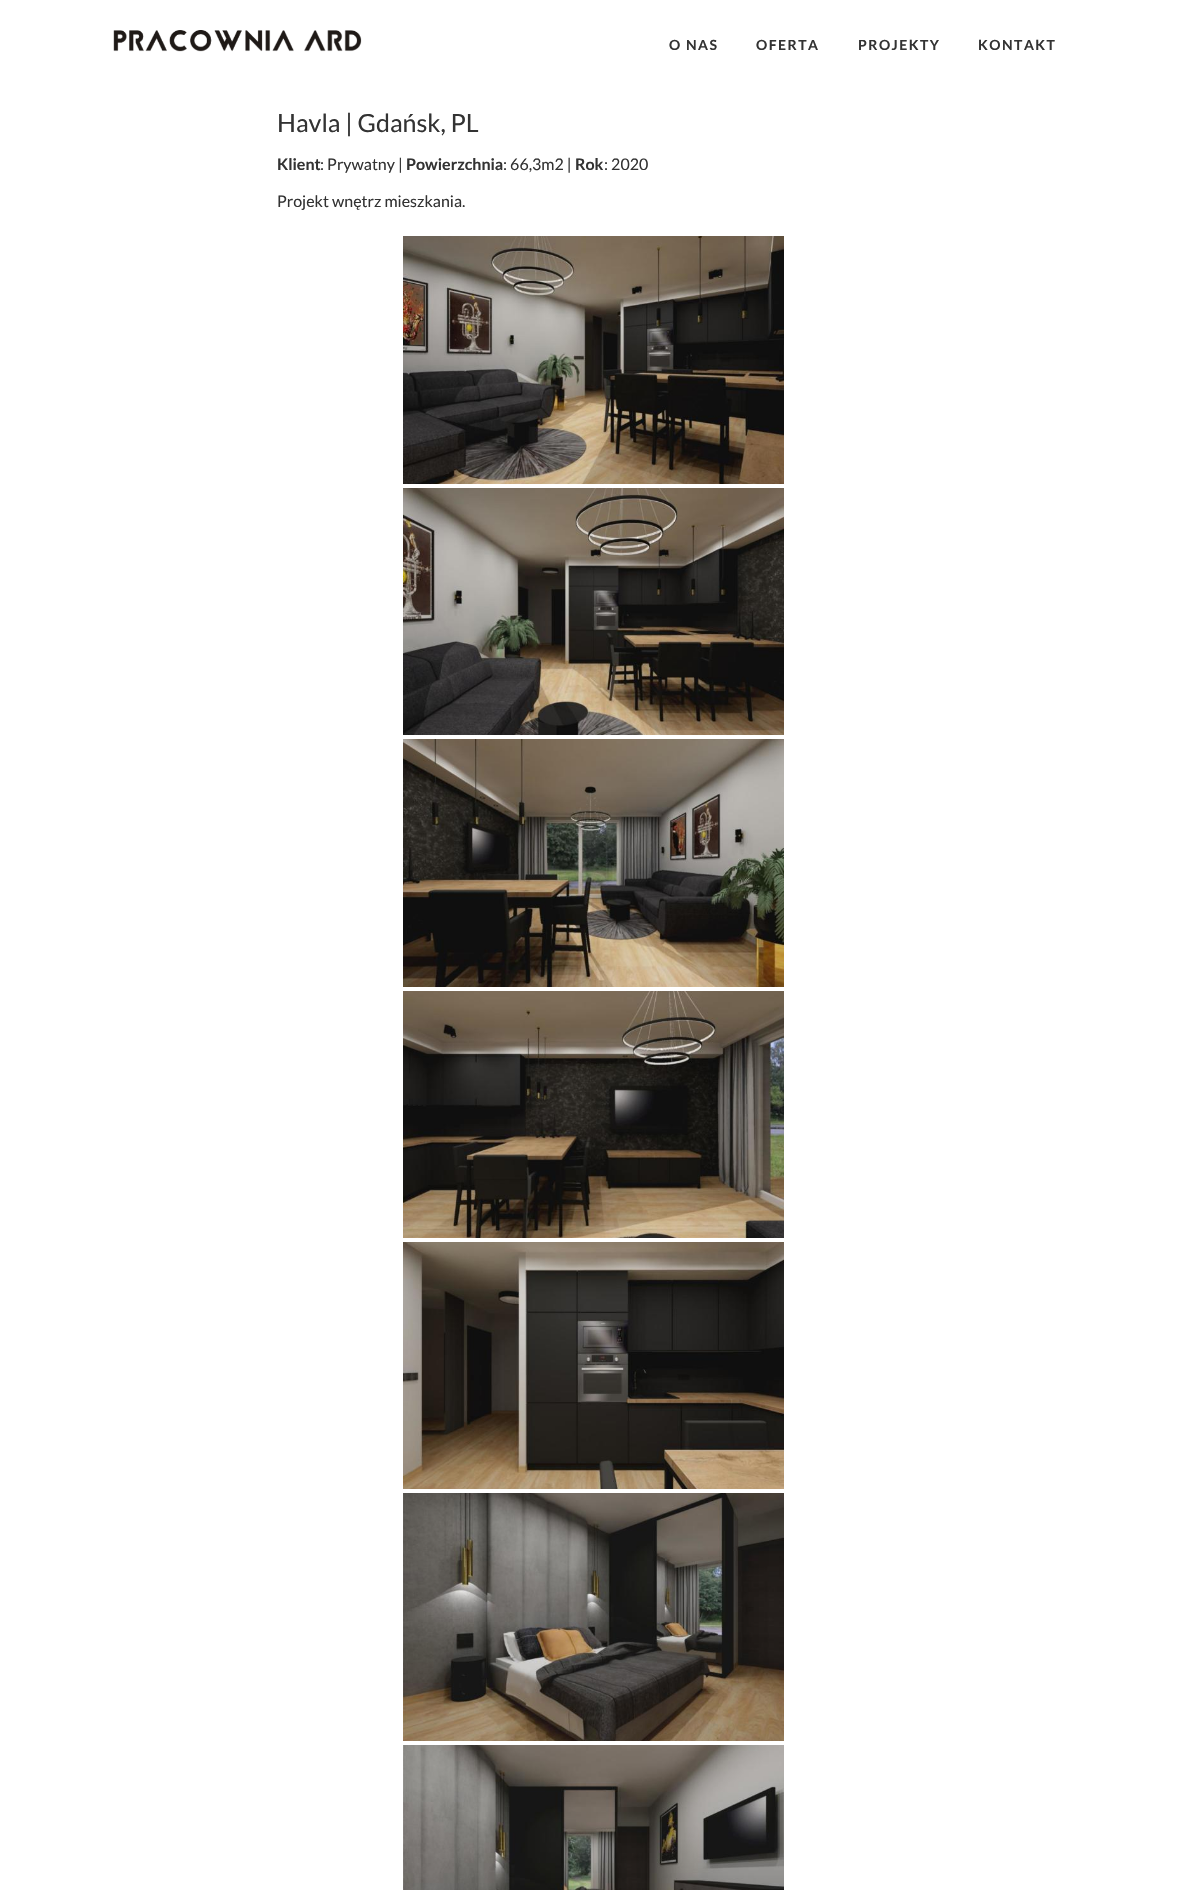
void draw(SkCanvas* canvas) {
    SkPaint paint;
    paint.setAntiAlias(true);
    auto spacedText = [&](const char* s, float x, float y, const SkFont& font, const SkPaint& ink, float letter, float word) {
        std::vector<SkGlyphID> glyphs(font.countText(s, strlen(s), SkTextEncoding::kUTF8));
        std::vector<float> xs(glyphs.size());
        font.textToGlyphs(s, strlen(s), SkTextEncoding::kUTF8, glyphs);
        font.getXPos(glyphs, xs, x);
        float extra = 0;
        for (size_t i = 0; i < glyphs.size(); i++) {
            xs[i] += extra;
            extra += letter + word * (glyphs[i] == font.unicharToGlyph(' '));
        }
        canvas->drawTextBlob(SkTextBlob::MakeFromPosHGlyphs(glyphs, xs, y, font), 0, 0, ink);
    };
    canvas->clear(0xFFFFFFFF);
    canvas->drawImageRect(SkImages::DeferredFromEncodedData(SkData::MakeFromFileName("img1.png")), SkRect::MakeXYWH(113, 30, 249, 22), SkSamplingOptions());
    SkFont font1(fontMgr->matchFamilyStyle("Lato", SkFontStyle::Bold()), 14);
    font1.setSubpixel(true);
    paint.setColor(0xFF333333);
    spacedText("O NAS", 669, 50, font1, paint, 1.5f, 0);
    spacedText("OFERTA", 756, 50, font1, paint, 1.5f, 0);
    spacedText("PROJEKTY", 858, 50, font1, paint, 1.5f, 0);
    spacedText("KONTAKT", 978, 50, font1, paint, 1.5f, 0);
    SkFont font2(fontMgr->matchFamilyStyle("Lato", SkFontStyle::Normal()), 25);
    font2.setSubpixel(true);
    canvas->drawString("Havla | Gdańsk, PL", 277, 132, font2, paint);
    SkFont font3(fontMgr->matchFamilyStyle("Lato", SkFontStyle::Bold()), 16);
    font3.setSubpixel(true);
    canvas->drawString("Klient", 277, 170, font3, paint);
    SkFont font4(fontMgr->matchFamilyStyle("Lato", SkFontStyle::Normal()), 16);
    font4.setSubpixel(true);
    canvas->drawString(": Prywatny |", 320, 170, font4, paint);
    canvas->drawString("Powierzchnia", 406, 170, font3, paint);
    canvas->drawString(": 66,3m2 |", 503, 170, font4, paint);
    canvas->drawString("Rok", 575, 170, font3, paint);
    canvas->drawString(": 2020", 604, 170, font4, paint);
    canvas->drawString("Projekt wnętrz mieszkania.", 277, 207, font4, paint);
    canvas->drawImageRect(SkImages::DeferredFromEncodedData(SkData::MakeFromFileName("img2.png")), SkRect::MakeXYWH(403, 236, 381, 248), SkSamplingOptions());
    canvas->drawImageRect(SkImages::DeferredFromEncodedData(SkData::MakeFromFileName("img3.png")), SkRect::MakeXYWH(403, 488, 381, 247), SkSamplingOptions());
    canvas->drawImageRect(SkImages::DeferredFromEncodedData(SkData::MakeFromFileName("img4.png")), SkRect::MakeXYWH(403, 739, 381, 248), SkSamplingOptions());
    canvas->drawImageRect(SkImages::DeferredFromEncodedData(SkData::MakeFromFileName("img5.png")), SkRect::MakeXYWH(403, 991, 381, 247), SkSamplingOptions());
    canvas->drawImageRect(SkImages::DeferredFromEncodedData(SkData::MakeFromFileName("img6.png")), SkRect::MakeXYWH(403, 1242, 381, 247), SkSamplingOptions());
    canvas->drawImageRect(SkImages::DeferredFromEncodedData(SkData::MakeFromFileName("img7.png")), SkRect::MakeXYWH(403, 1493, 381, 248), SkSamplingOptions());
    canvas->drawImageRect(SkImages::DeferredFromEncodedData(SkData::MakeFromFileName("img8.png")), SkRect::MakeXYWH(403, 1745, 381, 145), SkSamplingOptions());
}
